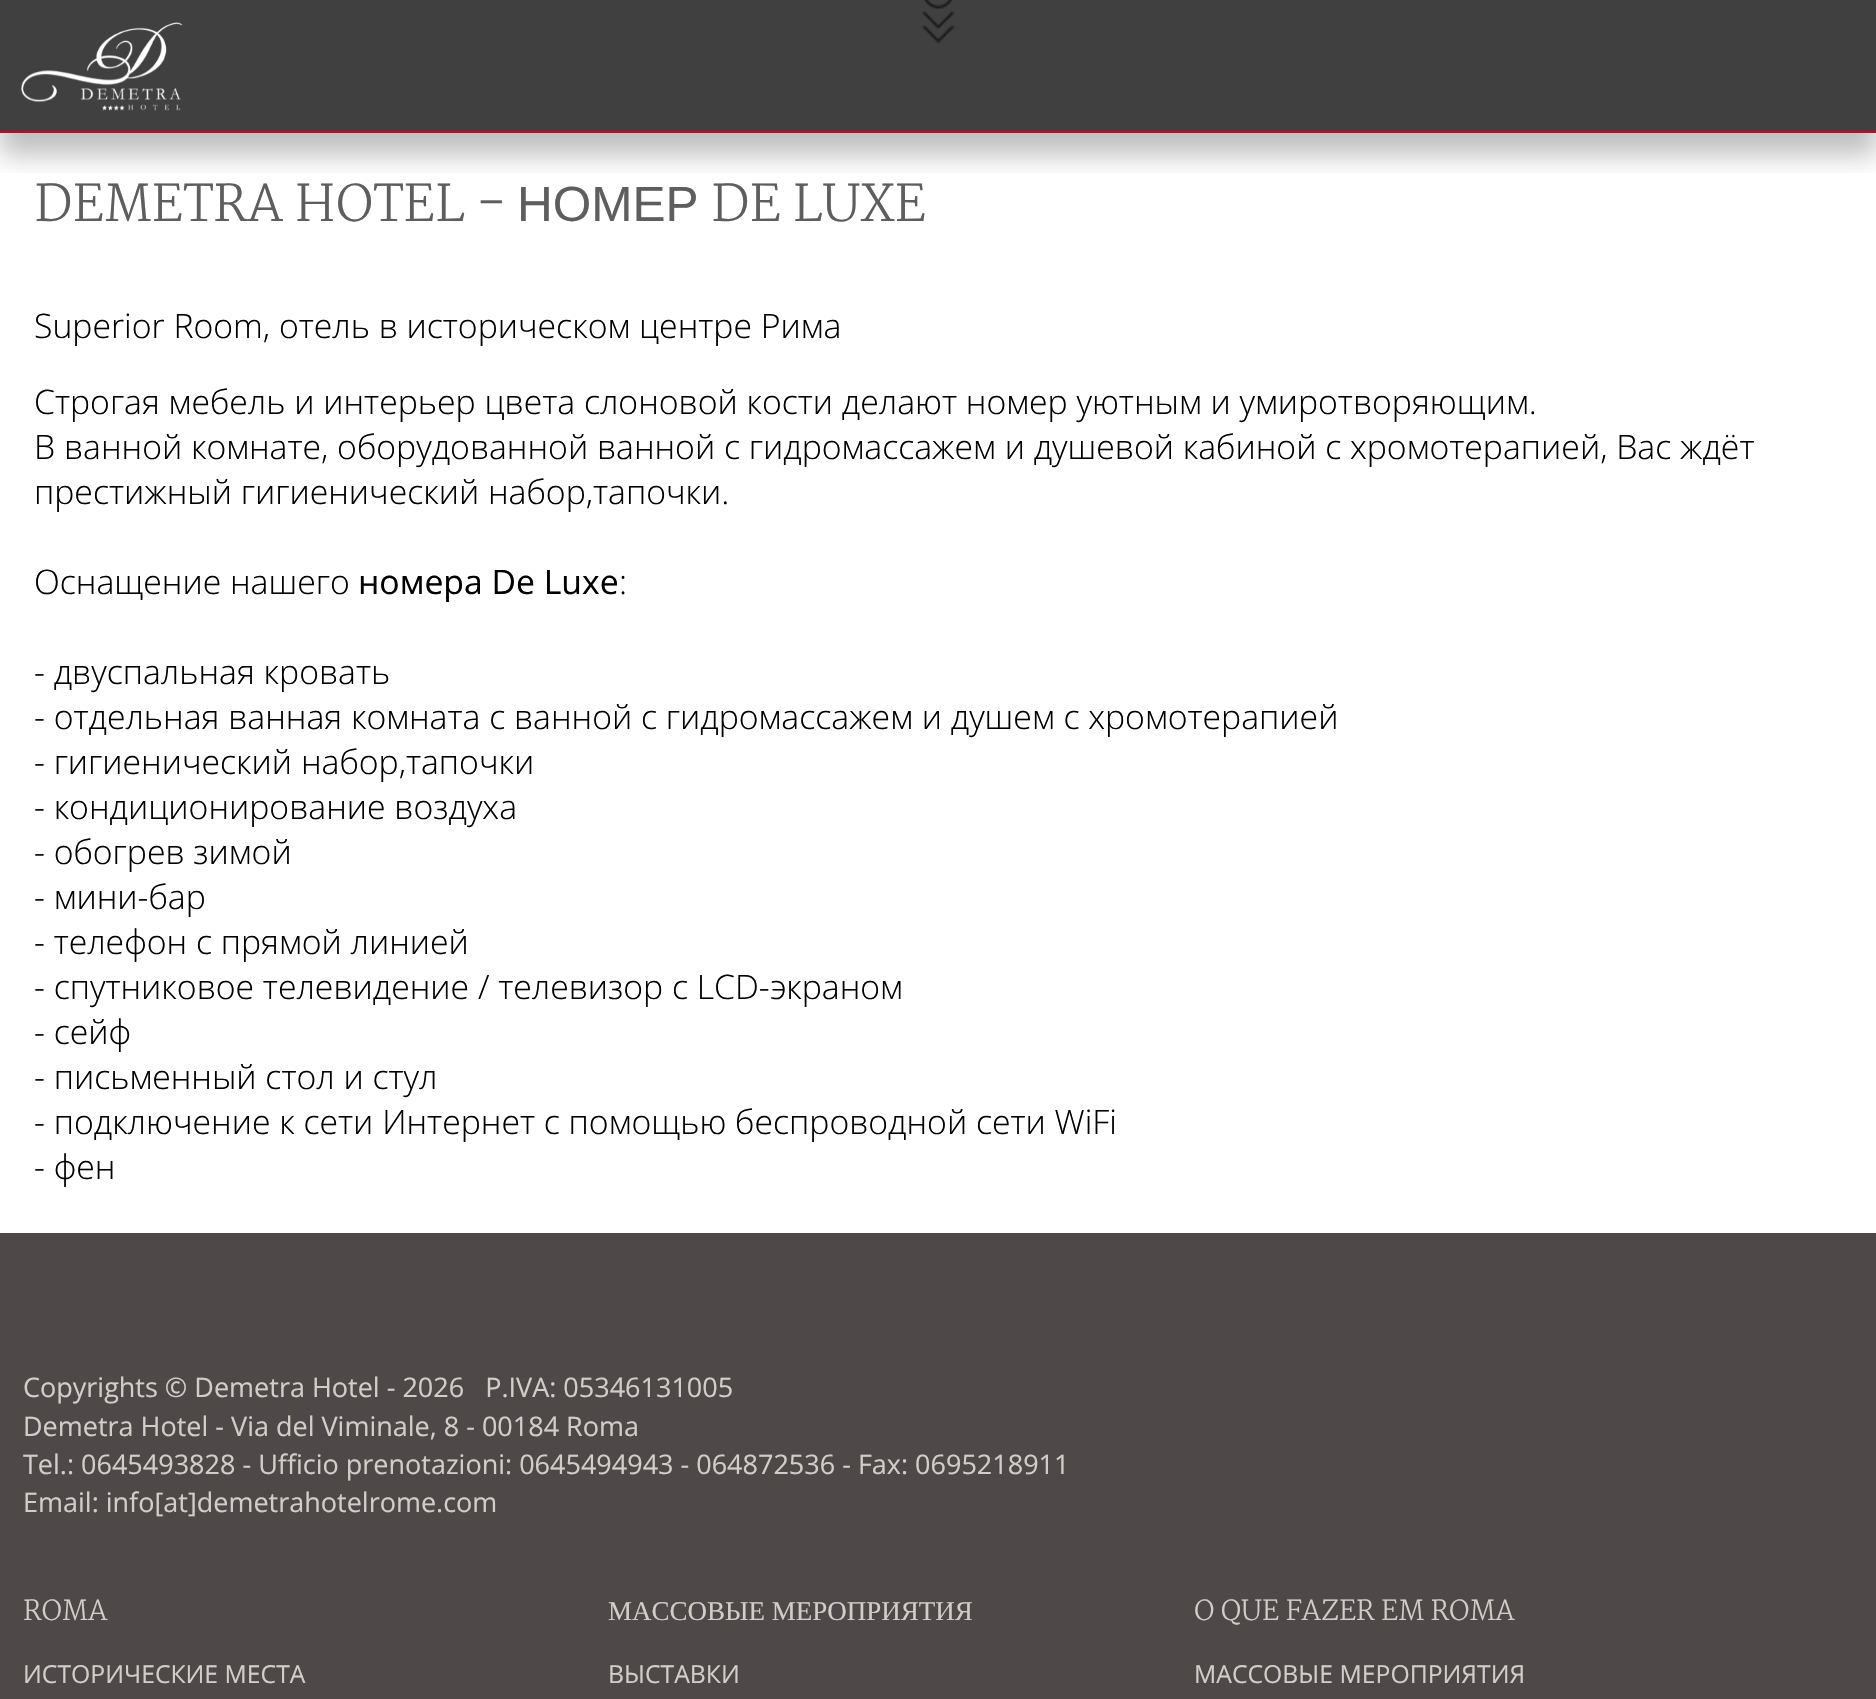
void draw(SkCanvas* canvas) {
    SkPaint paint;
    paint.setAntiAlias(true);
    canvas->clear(0xFFFFFFFF);
    canvas->drawImageRect(SkImages::DeferredFromEncodedData(SkData::MakeFromFileName("img2.png")), SkRect::MakeXYWH(921, 0, 34, 43), SkSamplingOptions());
    canvas->save();
    canvas->clipRect(SkRect::MakeXYWH(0, 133, 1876, 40));
    paint.setColor(0x40000000);
    paint.setMaskFilter(SkMaskFilter::MakeBlur(kNormal_SkBlurStyle, 12.5f));
    canvas->drawRect(SkRect::MakeXYWH(0, 23, 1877, 132), paint);
    paint.setMaskFilter(nullptr);
    canvas->restore();
    paint.setColor(0xBF000000);
    canvas->drawRect(SkRect::MakeXYWH(0, 0, 1876, 131), paint);
    paint.setColor(0xFFC9042B);
    canvas->drawRect(SkRect::MakeXYWH(0, 131, 1876, 2), paint);
    canvas->drawImageRect(SkImages::DeferredFromEncodedData(SkData::MakeFromFileName("img1.png")), SkRect::MakeXYWH(21, 22, 162, 89), SkSamplingOptions());
    SkFont font1(fontMgr->matchFamilyStyle("Martel", SkFontStyle(300, SkFontStyle::kNormal_Width, SkFontStyle::kUpright_Slant)), 49.5f);
    font1.setSubpixel(true);
    paint.setColor(0xFF5E5E5E);
    canvas->drawString("DEMETRA HOTEL -", 34, 221, font1, paint);
    SkFont font2(fontMgr->matchFamilyStyle("Liberation Sans", SkFontStyle::Normal()), 49.5f);
    font2.setSubpixel(true);
    canvas->drawString("НОМЕР", 517, 221, font2, paint);
    canvas->drawString("DE LUXE", 711, 221, font1, paint);
    SkFont font3(fontMgr->matchFamilyStyle("Open Sans", SkFontStyle(300, SkFontStyle::kNormal_Width, SkFontStyle::kUpright_Slant)), 33.75f);
    font3.setSubpixel(true);
    paint.setColor(0xFF000000);
    canvas->drawString("Superior Room, отель в историческом центре Рима", 34, 338, font3, paint);
    canvas->drawString("Строгая мебель и интерьер цвета слоновой кости делают номер уютным и умиротворяющим.", 34, 414, font3, paint);
    canvas->drawString("В ванной комнате, оборудованной ванной с гидромассажем и душевой кабиной с хромотерапией, Вас ждёт", 34, 459, font3, paint);
    canvas->drawString("престижный гигиенический набор,тапочки.", 34, 504, font3, paint);
    canvas->drawString("Оснащение нашего", 34, 594, font3, paint);
    SkFont font4(fontMgr->matchFamilyStyle("Open Sans", SkFontStyle::Normal()), 33.75f);
    font4.setSubpixel(true);
    canvas->drawString("номера De Luxe", 358, 594, font4, paint);
    canvas->drawString(":", 619, 594, font3, paint);
    canvas->drawString("- двуспальная кровать", 34, 684, font3, paint);
    canvas->drawString("- отдельная ванная комната с ванной с гидромассажем и душем с хромотерапией", 34, 729, font3, paint);
    canvas->drawString("- гигиенический набор,тапочки", 34, 774, font3, paint);
    canvas->drawString("- кондиционирование воздуха", 34, 819, font3, paint);
    canvas->drawString("- обогрев зимой", 34, 864, font3, paint);
    canvas->drawString("- мини-бар", 34, 909, font3, paint);
    canvas->drawString("- телефон с прямой линией", 34, 954, font3, paint);
    canvas->drawString("- спутниковое телевидение / телевизор с LCD-экраном", 34, 999, font3, paint);
    canvas->drawString("- сейф", 34, 1044, font3, paint);
    canvas->drawString("- письменный стол и стул", 34, 1089, font3, paint);
    canvas->drawString("- подключение к сети Интернет с помощью беспроводной сети WiFi", 34, 1134, font3, paint);
    canvas->drawString("- фен", 34, 1179, font3, paint);
    paint.setColor(0xFF4F4849);
    canvas->drawRect(SkRect::MakeXYWH(0, 1233, 1876, 466), paint);
    SkFont font5(fontMgr->matchFamilyStyle("Open Sans", SkFontStyle::Normal()), 27);
    font5.setSubpixel(true);
    paint.setColor(0xFFD1CDC9);
    canvas->drawString("Copyrights © Demetra Hotel - 2026   P.IVA: 05346131005", 23, 1397, font5, paint);
    canvas->drawString("Demetra Hotel - Via del Viminale, 8 - 00184 Roma", 23, 1436, font5, paint);
    canvas->drawString("Tel.: 0645493828 - Ufficio prenotazioni: 0645494943 - 064872536 - Fax: 0695218911", 23, 1474, font5, paint);
    canvas->drawString("Email: info[at]demetrahotelrome.com", 23, 1512, font5, paint);
    SkFont font6(fontMgr->matchFamilyStyle("Martel", SkFontStyle(300, SkFontStyle::kNormal_Width, SkFontStyle::kUpright_Slant)), 27);
    font6.setSubpixel(true);
    canvas->drawString("ROMA", 23, 1620, font6, paint);
    SkFont font7(fontMgr->matchFamilyStyle("Open Sans", SkFontStyle::Normal()), 24.75f);
    font7.setSubpixel(true);
    canvas->drawString("ИСТОРИЧЕСКИЕ МЕСТА", 23, 1683, font7, paint);
    SkFont font8(fontMgr->matchFamilyStyle("Liberation Serif", SkFontStyle::Normal()), 27);
    font8.setSubpixel(true);
    canvas->drawString("МАССОВЫЕ МЕРОПРИЯТИЯ", 608, 1620, font8, paint);
    canvas->drawString("ВЫСТАВКИ", 608, 1683, font7, paint);
    canvas->drawString("O QUE FAZER EM ROMA", 1194, 1620, font6, paint);
    canvas->drawString("МАССОВЫЕ МЕРОПРИЯТИЯ", 1194, 1683, font7, paint);
}
